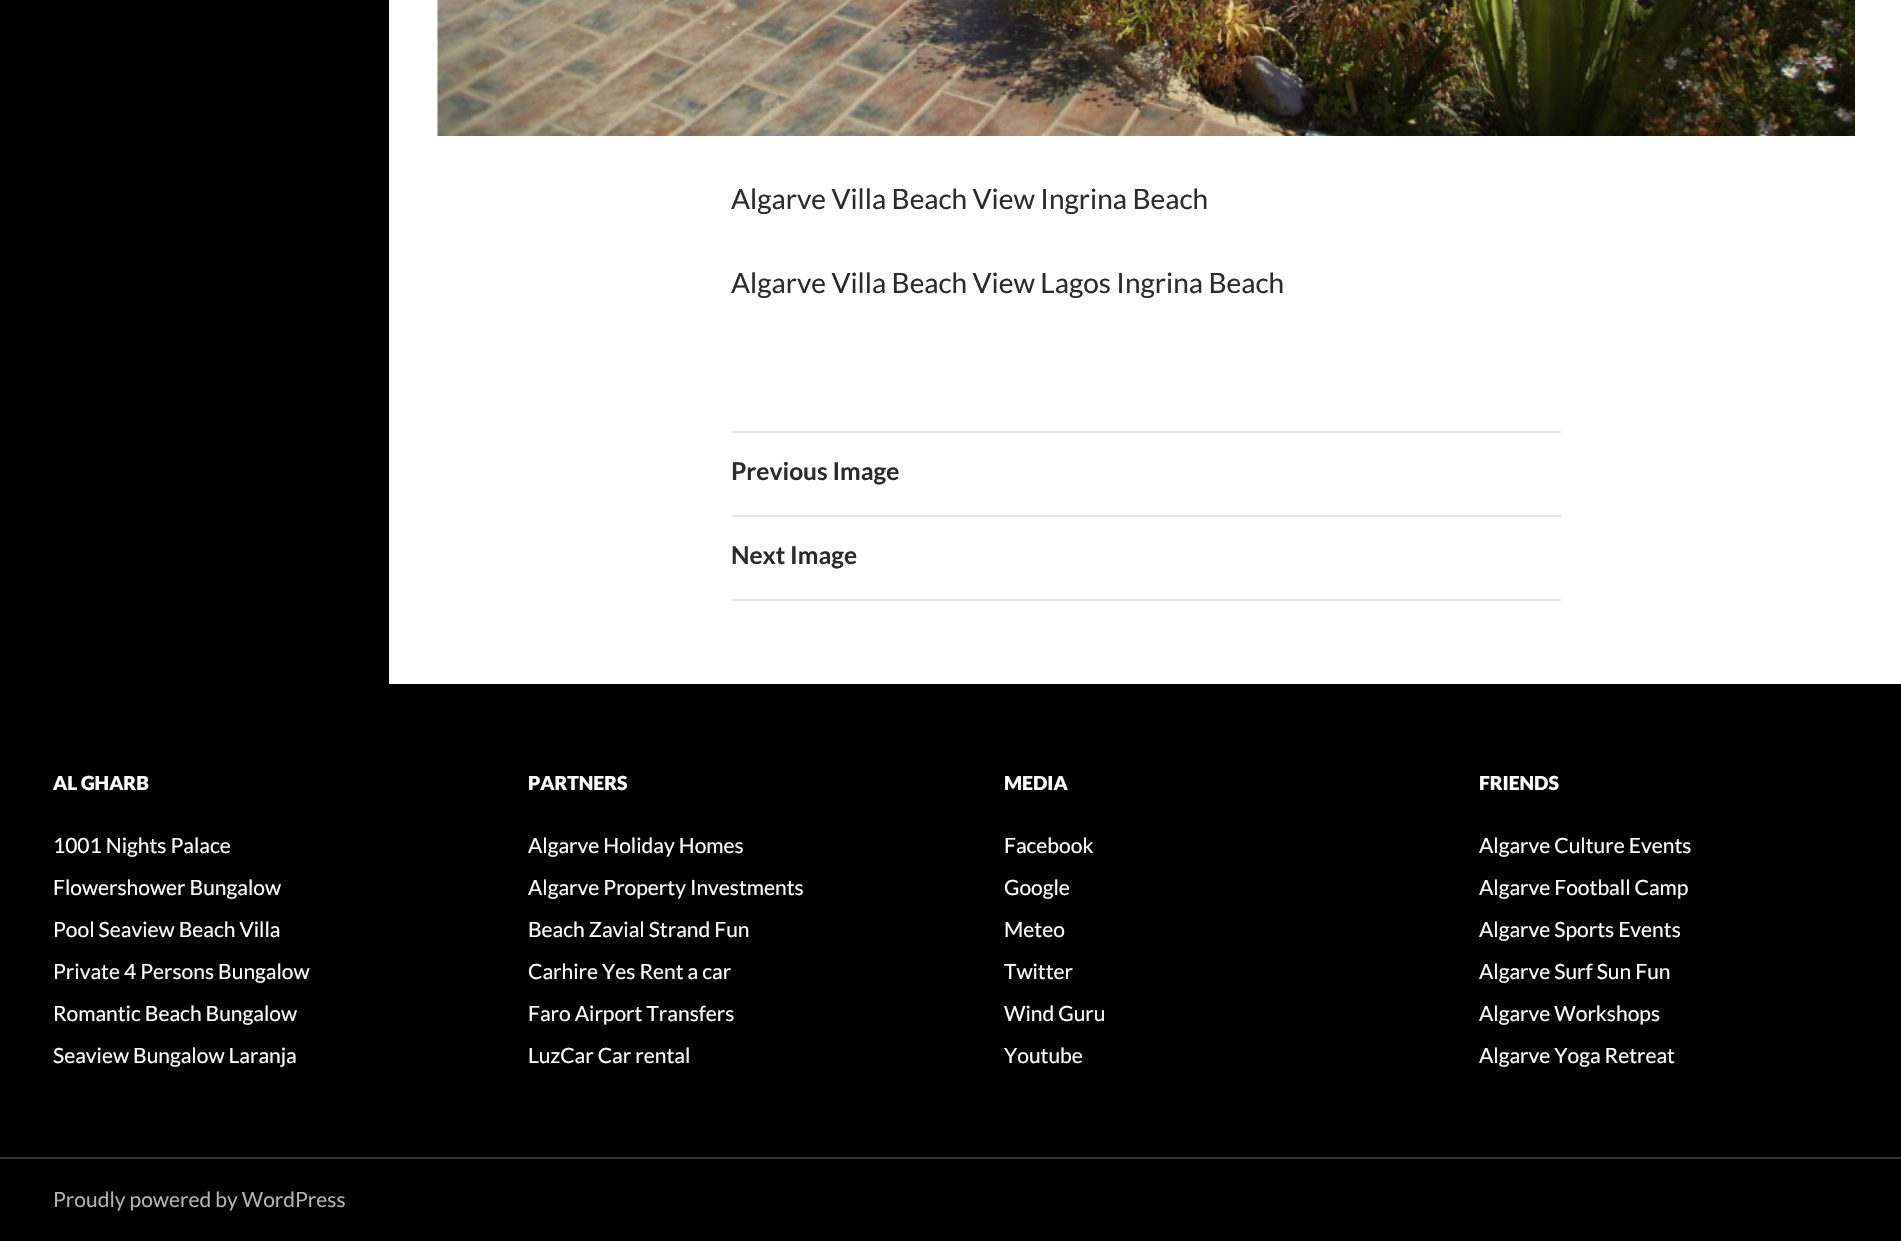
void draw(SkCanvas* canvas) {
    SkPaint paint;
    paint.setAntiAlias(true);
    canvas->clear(0xFFFFFFFF);
    paint.setColor(0xFF000000);
    canvas->drawRect(SkRect::MakeXYWH(0, 0, 389, 684), paint);
    canvas->drawImageRect(SkImages::DeferredFromEncodedData(SkData::MakeFromFileName("img1.png")), SkRect::MakeXYWH(437, 0, 1418, 136), SkSamplingOptions());
    SkFont font1(fontMgr->matchFamilyStyle("Lato", SkFontStyle::Normal()), 28);
    font1.setSubpixel(true);
    paint.setColor(0xFF2B2B2B);
    canvas->drawString("Algarve Villa Beach View Ingrina Beach", 731, 209, font1, paint);
    canvas->drawString("Algarve Villa Beach View Lagos Ingrina Beach", 731, 293, font1, paint);
    paint.setColor(0xFFE6E6E6);
    canvas->drawRect(SkRect::MakeXYWH(732, 431, 829, 2), paint);
    canvas->drawRect(SkRect::MakeXYWH(732, 515, 829, 2), paint);
    SkFont font2(fontMgr->matchFamilyStyle("Lato", SkFontStyle::Bold()), 24.5f);
    font2.setSubpixel(true);
    paint.setColor(0xFF2B2B2B);
    canvas->drawString("Previous Image", 731, 480, font2, paint);
    paint.setColor(0xFFE6E6E6);
    canvas->drawRect(SkRect::MakeXYWH(732, 599, 829, 2), paint);
    paint.setColor(0xFF2B2B2B);
    canvas->drawString("Next Image", 731, 564, font2, paint);
    paint.setColor(0xFF000000);
    canvas->drawRect(SkRect::MakeXYWH(0, 684, 1901, 557), paint);
    SkFont font3(fontMgr->matchFamilyStyle("Lato", SkFontStyle(900, SkFontStyle::kNormal_Width, SkFontStyle::kUpright_Slant)), 19.25f);
    font3.setSubpixel(true);
    paint.setColor(0xFFFFFFFF);
    canvas->drawString("AL GHARB", 53, 790, font3, paint);
    SkFont font4(fontMgr->matchFamilyStyle("Lato", SkFontStyle::Normal()), 21);
    font4.setSubpixel(true);
    canvas->drawString("1001 Nights Palace", 53, 853, font4, paint);
    canvas->drawString("Flowershower Bungalow", 53, 895, font4, paint);
    canvas->drawString("Pool Seaview Beach Villa", 53, 937, font4, paint);
    canvas->drawString("Private 4 Persons Bungalow", 53, 979, font4, paint);
    canvas->drawString("Romantic Beach Bungalow", 53, 1021, font4, paint);
    canvas->drawString("Seaview Bungalow Laranja", 53, 1063, font4, paint);
    canvas->drawString("PARTNERS", 528, 790, font3, paint);
    canvas->drawString("Algarve Holiday Homes", 528, 853, font4, paint);
    canvas->drawString("Algarve Property Investments", 528, 895, font4, paint);
    canvas->drawString("Beach Zavial Strand Fun", 528, 937, font4, paint);
    canvas->drawString("Carhire Yes Rent a car", 528, 979, font4, paint);
    canvas->drawString("Faro Airport Transfers", 528, 1021, font4, paint);
    canvas->drawString("LuzCar Car rental", 528, 1063, font4, paint);
    canvas->drawString("MEDIA", 1004, 790, font3, paint);
    canvas->drawString("Facebook", 1004, 853, font4, paint);
    canvas->drawString("Google", 1004, 895, font4, paint);
    canvas->drawString("Meteo", 1004, 937, font4, paint);
    canvas->drawString("Twitter", 1004, 979, font4, paint);
    canvas->drawString("Wind Guru", 1004, 1021, font4, paint);
    canvas->drawString("Youtube", 1004, 1063, font4, paint);
    canvas->drawString("FRIENDS", 1479, 790, font3, paint);
    canvas->drawString("Algarve Culture Events", 1479, 853, font4, paint);
    canvas->drawString("Algarve Football Camp", 1479, 895, font4, paint);
    canvas->drawString("Algarve Sports Events", 1479, 937, font4, paint);
    canvas->drawString("Algarve Surf Sun Fun", 1479, 979, font4, paint);
    canvas->drawString("Algarve Workshops", 1479, 1021, font4, paint);
    canvas->drawString("Algarve Yoga Retreat", 1479, 1063, font4, paint);
    paint.setColor(0xFF333333);
    canvas->drawRect(SkRect::MakeXYWH(0, 1157, 1901, 2), paint);
    paint.setColor(0xFFB3B3B3);
    canvas->drawString("Proudly powered by WordPress", 53, 1207, font4, paint);
}
